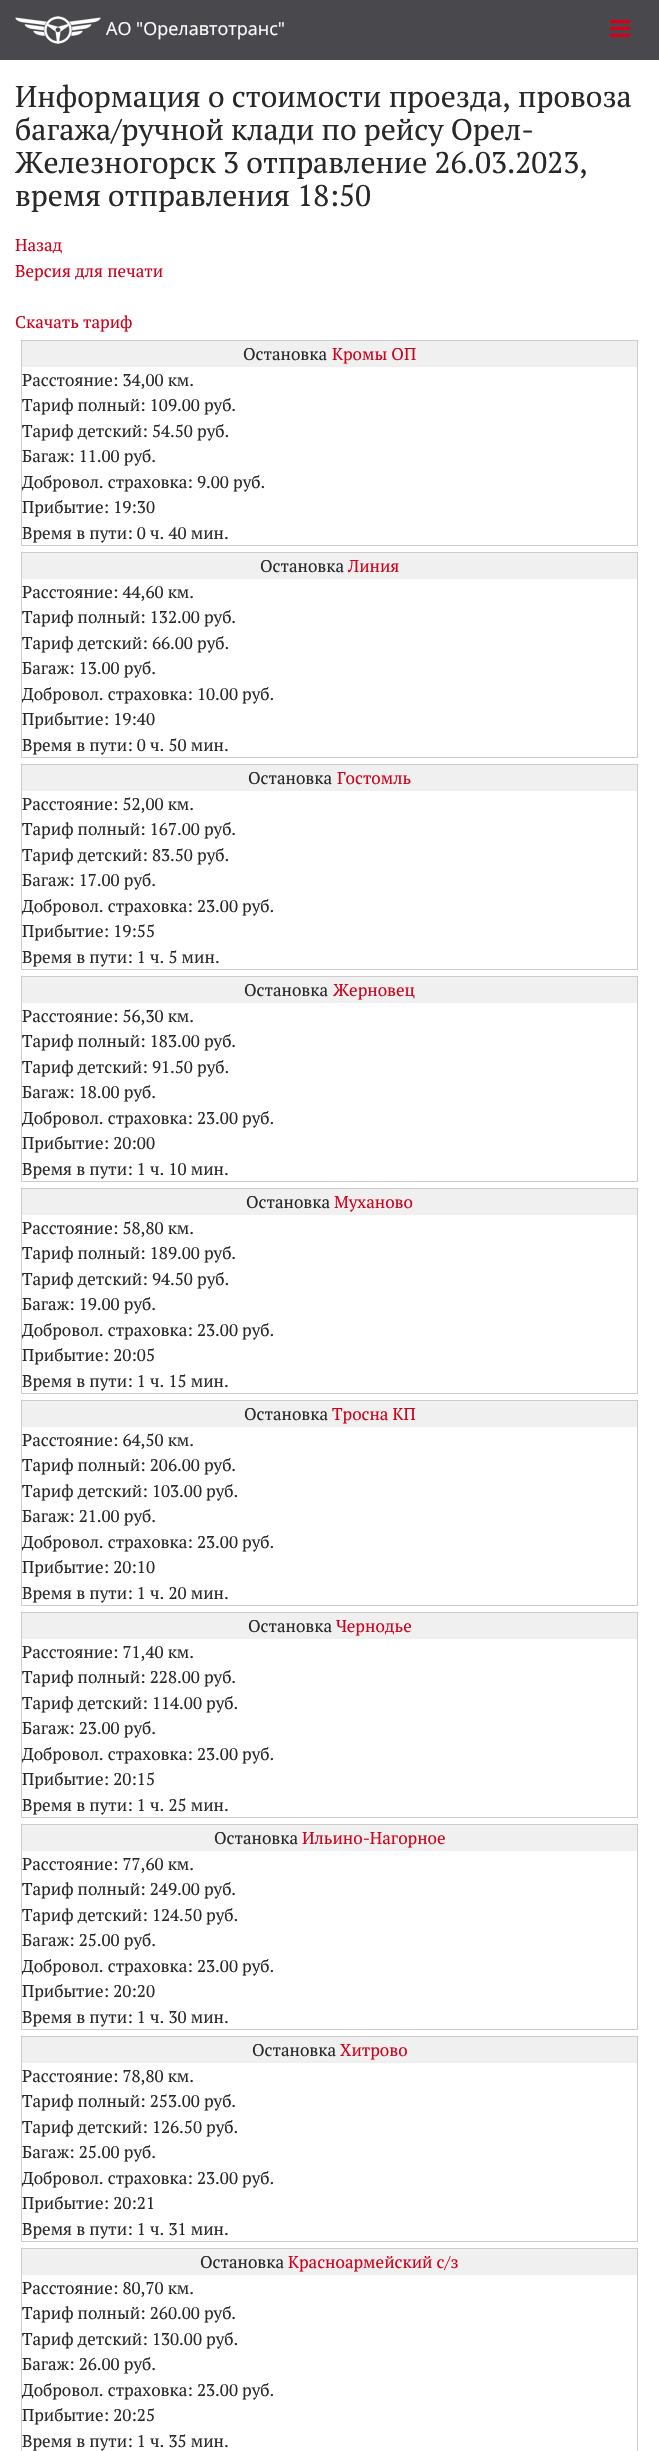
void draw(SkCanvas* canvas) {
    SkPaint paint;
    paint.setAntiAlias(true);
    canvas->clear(0xFFFFFFFF);
    paint.setColor(0xFF49494D);
    canvas->drawRect(SkRect::MakeXYWH(0, 0, 659, 60), paint);
    canvas->drawImageRect(SkImages::DeferredFromEncodedData(SkData::MakeFromFileName("img1.png")), SkRect::MakeXYWH(15, 16, 86, 28), SkSamplingOptions());
    SkFont font1(fontMgr->matchFamilyStyle("Open Sans", SkFontStyle::Normal()), 18);
    font1.setSubpixel(true);
    paint.setColor(0xFFFFFFFF);
    canvas->drawString("АО \"Орелавтотранс\"", 106, 35, font1, paint);
    canvas->drawImageRect(SkImages::DeferredFromEncodedData(SkData::MakeFromFileName("img2.png")), SkRect::MakeXYWH(610, 19, 21, 18), SkSamplingOptions());
    SkFont font2(fontMgr->matchFamilyStyle("PT Serif", SkFontStyle::Normal()), 30);
    font2.setSubpixel(true);
    paint.setColor(0xFF282828);
    canvas->drawString("Информация о стоимости проезда, провоза", 15, 107, font2, paint);
    canvas->drawString("багажа/ручной клади по рейсу Орел-", 15, 140, font2, paint);
    canvas->drawString("Железногорск 3 отправление 26.03.2023,", 15, 173, font2, paint);
    canvas->drawString("время отправления 18:50", 15, 206, font2, paint);
    SkFont font3(fontMgr->matchFamilyStyle("PT Serif", SkFontStyle::Normal()), 17);
    font3.setSubpixel(true);
    paint.setColor(0xFFD0021B);
    canvas->drawString("Назад", 15, 251, font3, paint);
    canvas->drawString("Версия для печати", 15, 277, font3, paint);
    canvas->drawString("Скачать тариф", 15, 328, font3, paint);
    paint.setStyle(SkPaint::kStroke_Style);
    paint.setStrokeWidth(1);
    paint.setColor(0xFFCCCCCC);
    canvas->drawRect(SkRect::MakeXYWH(21.5f, 340.5f, 616, 205), paint);
    paint.setStyle(SkPaint::kFill_Style);
    paint.setColor(0xFFF0F0F0);
    canvas->drawRect(SkRect::MakeXYWH(22, 341, 615, 26), paint);
    paint.setColor(0xFF282828);
    canvas->drawString("Остановка", 243, 360, font3, paint);
    paint.setColor(0xFFD0021B);
    canvas->drawString("Кромы ОП", 332, 360, font3, paint);
    paint.setColor(0xFF282828);
    canvas->drawString("Расстояние: 34,00 км.", 22, 386, font3, paint);
    canvas->drawString("Тариф полный: 109.00 руб.", 22, 411, font3, paint);
    canvas->drawString("Тариф детский: 54.50 руб.", 22, 437, font3, paint);
    canvas->drawString("Багаж: 11.00 руб.", 22, 462, font3, paint);
    canvas->drawString("Добровол. страховка: 9.00 руб.", 22, 488, font3, paint);
    canvas->drawString("Прибытие: 19:30", 22, 513, font3, paint);
    canvas->drawString("Время в пути: 0 ч. 40 мин.", 22, 539, font3, paint);
    paint.setStyle(SkPaint::kStroke_Style);
    paint.setColor(0xFFCCCCCC);
    canvas->drawRect(SkRect::MakeXYWH(21.5f, 552.5f, 616, 205), paint);
    paint.setStyle(SkPaint::kFill_Style);
    paint.setColor(0xFFF0F0F0);
    canvas->drawRect(SkRect::MakeXYWH(22, 553, 615, 26), paint);
    paint.setColor(0xFF282828);
    canvas->drawString("Остановка", 260, 572, font3, paint);
    paint.setColor(0xFFD0021B);
    canvas->drawString("Линия", 348, 572, font3, paint);
    paint.setColor(0xFF282828);
    canvas->drawString("Расстояние: 44,60 км.", 22, 598, font3, paint);
    canvas->drawString("Тариф полный: 132.00 руб.", 22, 623, font3, paint);
    canvas->drawString("Тариф детский: 66.00 руб.", 22, 649, font3, paint);
    canvas->drawString("Багаж: 13.00 руб.", 22, 674, font3, paint);
    canvas->drawString("Добровол. страховка: 10.00 руб.", 22, 700, font3, paint);
    canvas->drawString("Прибытие: 19:40", 22, 725, font3, paint);
    canvas->drawString("Время в пути: 0 ч. 50 мин.", 22, 751, font3, paint);
    paint.setStyle(SkPaint::kStroke_Style);
    paint.setColor(0xFFCCCCCC);
    canvas->drawRect(SkRect::MakeXYWH(21.5f, 764.5f, 616, 205), paint);
    paint.setStyle(SkPaint::kFill_Style);
    paint.setColor(0xFFF0F0F0);
    canvas->drawRect(SkRect::MakeXYWH(22, 765, 615, 26), paint);
    paint.setColor(0xFF282828);
    canvas->drawString("Остановка", 248, 784, font3, paint);
    paint.setColor(0xFFD0021B);
    canvas->drawString("Гостомль", 337, 784, font3, paint);
    paint.setColor(0xFF282828);
    canvas->drawString("Расстояние: 52,00 км.", 22, 810, font3, paint);
    canvas->drawString("Тариф полный: 167.00 руб.", 22, 835, font3, paint);
    canvas->drawString("Тариф детский: 83.50 руб.", 22, 861, font3, paint);
    canvas->drawString("Багаж: 17.00 руб.", 22, 886, font3, paint);
    canvas->drawString("Добровол. страховка: 23.00 руб.", 22, 912, font3, paint);
    canvas->drawString("Прибытие: 19:55", 22, 937, font3, paint);
    canvas->drawString("Время в пути: 1 ч. 5 мин.", 22, 963, font3, paint);
    paint.setStyle(SkPaint::kStroke_Style);
    paint.setColor(0xFFCCCCCC);
    canvas->drawRect(SkRect::MakeXYWH(21.5f, 976.5f, 616, 205), paint);
    paint.setStyle(SkPaint::kFill_Style);
    paint.setColor(0xFFF0F0F0);
    canvas->drawRect(SkRect::MakeXYWH(22, 977, 615, 26), paint);
    paint.setColor(0xFF282828);
    canvas->drawString("Остановка", 244, 996, font3, paint);
    paint.setColor(0xFFD0021B);
    canvas->drawString("Жерновец", 333, 996, font3, paint);
    paint.setColor(0xFF282828);
    canvas->drawString("Расстояние: 56,30 км.", 22, 1022, font3, paint);
    canvas->drawString("Тариф полный: 183.00 руб.", 22, 1047, font3, paint);
    canvas->drawString("Тариф детский: 91.50 руб.", 22, 1073, font3, paint);
    canvas->drawString("Багаж: 18.00 руб.", 22, 1098, font3, paint);
    canvas->drawString("Добровол. страховка: 23.00 руб.", 22, 1124, font3, paint);
    canvas->drawString("Прибытие: 20:00", 22, 1149, font3, paint);
    canvas->drawString("Время в пути: 1 ч. 10 мин.", 22, 1175, font3, paint);
    paint.setStyle(SkPaint::kStroke_Style);
    paint.setColor(0xFFCCCCCC);
    canvas->drawRect(SkRect::MakeXYWH(21.5f, 1188.5f, 616, 205), paint);
    paint.setStyle(SkPaint::kFill_Style);
    paint.setColor(0xFFF0F0F0);
    canvas->drawRect(SkRect::MakeXYWH(22, 1189, 615, 26), paint);
    paint.setColor(0xFF282828);
    canvas->drawString("Остановка", 246, 1208, font3, paint);
    paint.setColor(0xFFD0021B);
    canvas->drawString("Муханово", 334, 1208, font3, paint);
    paint.setColor(0xFF282828);
    canvas->drawString("Расстояние: 58,80 км.", 22, 1234, font3, paint);
    canvas->drawString("Тариф полный: 189.00 руб.", 22, 1259, font3, paint);
    canvas->drawString("Тариф детский: 94.50 руб.", 22, 1285, font3, paint);
    canvas->drawString("Багаж: 19.00 руб.", 22, 1310, font3, paint);
    canvas->drawString("Добровол. страховка: 23.00 руб.", 22, 1336, font3, paint);
    canvas->drawString("Прибытие: 20:05", 22, 1361, font3, paint);
    canvas->drawString("Время в пути: 1 ч. 15 мин.", 22, 1387, font3, paint);
    paint.setStyle(SkPaint::kStroke_Style);
    paint.setColor(0xFFCCCCCC);
    canvas->drawRect(SkRect::MakeXYWH(21.5f, 1400.5f, 616, 205), paint);
    paint.setStyle(SkPaint::kFill_Style);
    paint.setColor(0xFFF0F0F0);
    canvas->drawRect(SkRect::MakeXYWH(22, 1401, 615, 26), paint);
    paint.setColor(0xFF282828);
    canvas->drawString("Остановка", 244, 1420, font3, paint);
    paint.setColor(0xFFD0021B);
    canvas->drawString("Тросна КП", 332, 1420, font3, paint);
    paint.setColor(0xFF282828);
    canvas->drawString("Расстояние: 64,50 км.", 22, 1446, font3, paint);
    canvas->drawString("Тариф полный: 206.00 руб.", 22, 1471, font3, paint);
    canvas->drawString("Тариф детский: 103.00 руб.", 22, 1497, font3, paint);
    canvas->drawString("Багаж: 21.00 руб.", 22, 1522, font3, paint);
    canvas->drawString("Добровол. страховка: 23.00 руб.", 22, 1548, font3, paint);
    canvas->drawString("Прибытие: 20:10", 22, 1573, font3, paint);
    canvas->drawString("Время в пути: 1 ч. 20 мин.", 22, 1599, font3, paint);
    paint.setStyle(SkPaint::kStroke_Style);
    paint.setColor(0xFFCCCCCC);
    canvas->drawRect(SkRect::MakeXYWH(21.5f, 1612.5f, 616, 205), paint);
    paint.setStyle(SkPaint::kFill_Style);
    paint.setColor(0xFFF0F0F0);
    canvas->drawRect(SkRect::MakeXYWH(22, 1613, 615, 26), paint);
    paint.setColor(0xFF282828);
    canvas->drawString("Остановка", 248, 1632, font3, paint);
    paint.setColor(0xFFD0021B);
    canvas->drawString("Чернодье", 336, 1632, font3, paint);
    paint.setColor(0xFF282828);
    canvas->drawString("Расстояние: 71,40 км.", 22, 1658, font3, paint);
    canvas->drawString("Тариф полный: 228.00 руб.", 22, 1683, font3, paint);
    canvas->drawString("Тариф детский: 114.00 руб.", 22, 1709, font3, paint);
    canvas->drawString("Багаж: 23.00 руб.", 22, 1734, font3, paint);
    canvas->drawString("Добровол. страховка: 23.00 руб.", 22, 1760, font3, paint);
    canvas->drawString("Прибытие: 20:15", 22, 1785, font3, paint);
    canvas->drawString("Время в пути: 1 ч. 25 мин.", 22, 1811, font3, paint);
    paint.setStyle(SkPaint::kStroke_Style);
    paint.setColor(0xFFCCCCCC);
    canvas->drawRect(SkRect::MakeXYWH(21.5f, 1824.5f, 616, 205), paint);
    paint.setStyle(SkPaint::kFill_Style);
    paint.setColor(0xFFF0F0F0);
    canvas->drawRect(SkRect::MakeXYWH(22, 1825, 615, 26), paint);
    paint.setColor(0xFF282828);
    canvas->drawString("Остановка", 214, 1844, font3, paint);
    paint.setColor(0xFFD0021B);
    canvas->drawString("Ильино-Нагорное", 302, 1844, font3, paint);
    paint.setColor(0xFF282828);
    canvas->drawString("Расстояние: 77,60 км.", 22, 1870, font3, paint);
    canvas->drawString("Тариф полный: 249.00 руб.", 22, 1895, font3, paint);
    canvas->drawString("Тариф детский: 124.50 руб.", 22, 1921, font3, paint);
    canvas->drawString("Багаж: 25.00 руб.", 22, 1946, font3, paint);
    canvas->drawString("Добровол. страховка: 23.00 руб.", 22, 1972, font3, paint);
    canvas->drawString("Прибытие: 20:20", 22, 1997, font3, paint);
    canvas->drawString("Время в пути: 1 ч. 30 мин.", 22, 2023, font3, paint);
    paint.setStyle(SkPaint::kStroke_Style);
    paint.setColor(0xFFCCCCCC);
    canvas->drawRect(SkRect::MakeXYWH(21.5f, 2036.5f, 616, 205), paint);
    paint.setStyle(SkPaint::kFill_Style);
    paint.setColor(0xFFF0F0F0);
    canvas->drawRect(SkRect::MakeXYWH(22, 2037, 615, 26), paint);
    paint.setColor(0xFF282828);
    canvas->drawString("Остановка", 252, 2056, font3, paint);
    paint.setColor(0xFFD0021B);
    canvas->drawString("Хитрово", 340, 2056, font3, paint);
    paint.setColor(0xFF282828);
    canvas->drawString("Расстояние: 78,80 км.", 22, 2082, font3, paint);
    canvas->drawString("Тариф полный: 253.00 руб.", 22, 2107, font3, paint);
    canvas->drawString("Тариф детский: 126.50 руб.", 22, 2133, font3, paint);
    canvas->drawString("Багаж: 25.00 руб.", 22, 2158, font3, paint);
    canvas->drawString("Добровол. страховка: 23.00 руб.", 22, 2184, font3, paint);
    canvas->drawString("Прибытие: 20:21", 22, 2209, font3, paint);
    canvas->drawString("Время в пути: 1 ч. 31 мин.", 22, 2235, font3, paint);
    paint.setStyle(SkPaint::kStroke_Style);
    paint.setColor(0xFFCCCCCC);
    canvas->drawRect(SkRect::MakeXYWH(21.5f, 2248.5f, 616, 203), paint);
    paint.setStyle(SkPaint::kFill_Style);
    paint.setColor(0xFFF0F0F0);
    canvas->drawRect(SkRect::MakeXYWH(22, 2249, 615, 26), paint);
    paint.setColor(0xFF282828);
    canvas->drawString("Остановка", 200, 2268, font3, paint);
    paint.setColor(0xFFD0021B);
    canvas->drawString("Красноармейский с/з", 288, 2268, font3, paint);
    paint.setColor(0xFF282828);
    canvas->drawString("Расстояние: 80,70 км.", 22, 2294, font3, paint);
    canvas->drawString("Тариф полный: 260.00 руб.", 22, 2319, font3, paint);
    canvas->drawString("Тариф детский: 130.00 руб.", 22, 2345, font3, paint);
    canvas->drawString("Багаж: 26.00 руб.", 22, 2370, font3, paint);
    canvas->drawString("Добровол. страховка: 23.00 руб.", 22, 2396, font3, paint);
    canvas->drawString("Прибытие: 20:25", 22, 2421, font3, paint);
    canvas->drawString("Время в пути: 1 ч. 35 мин.", 22, 2447, font3, paint);
}
